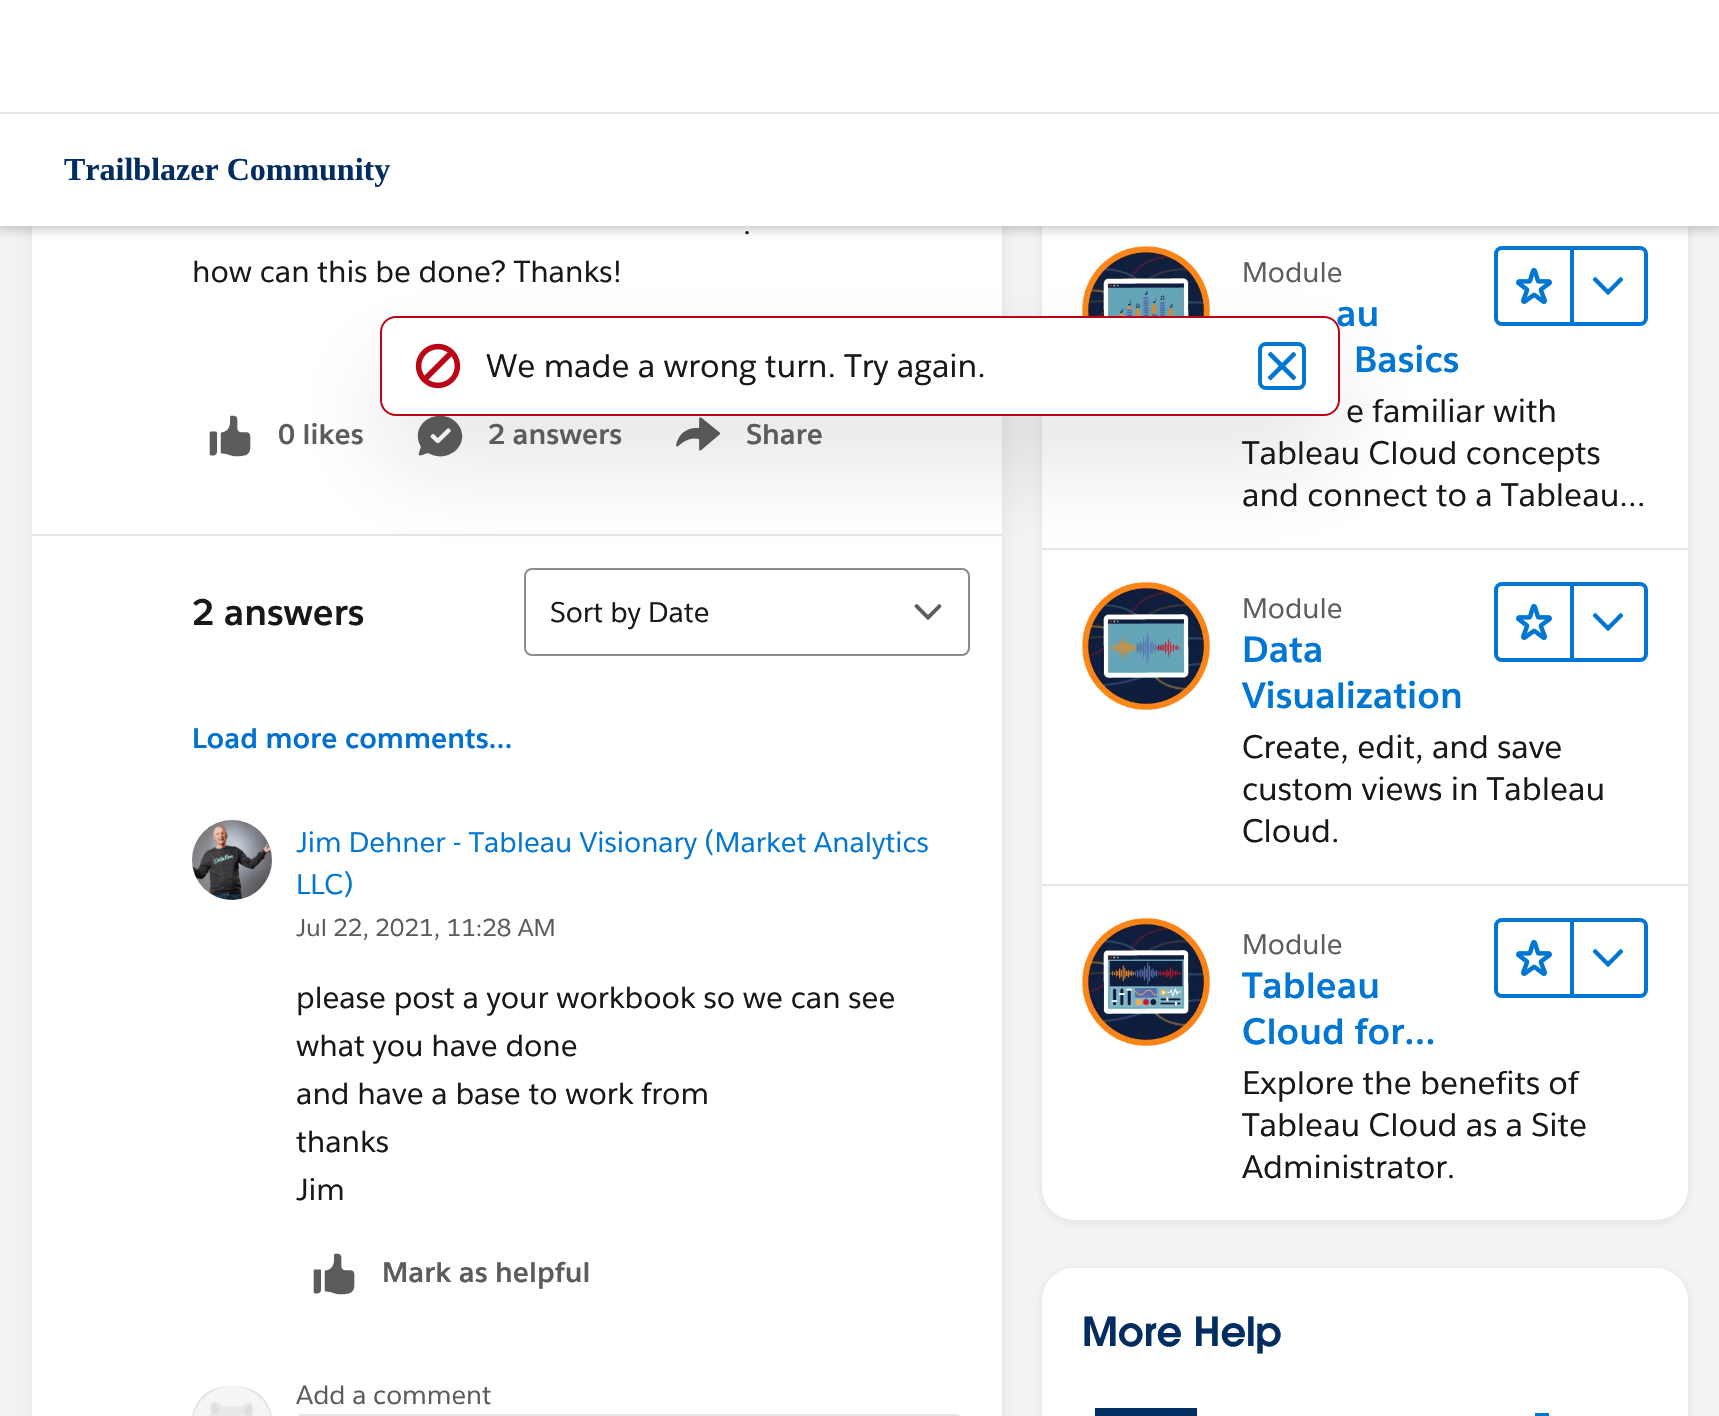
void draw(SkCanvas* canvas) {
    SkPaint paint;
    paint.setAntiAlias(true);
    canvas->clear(0xFFF3F3F3);
    paint.setColor(0x17181818);
    paint.setMaskFilter(SkMaskFilter::MakeBlur(kNormal_SkBlurStyle, 12));
    canvas->drawRoundRect(SkRect::MakeXYWH(36, -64, 962, 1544), 28, 28, paint);
    paint.setMaskFilter(nullptr);
    paint.setColor(0xFFFFFFFF);
    canvas->drawRect(SkRect::MakeXYWH(32, 226, 970, 1190), paint);
    paint.setColor(0x0F181818);
    paint.setMaskFilter(SkMaskFilter::MakeBlur(kNormal_SkBlurStyle, 3));
    canvas->drawRoundRect(SkRect::MakeXYWH(1040, 110, 650, 1114), 34, 34, paint);
    paint.setMaskFilter(nullptr);
    paint.setColor(0xFFFFFFFF);
    canvas->drawRoundRect(SkRect::MakeXYWH(1042, 110, 646, 1110), 32, 32, paint);
    paint.setColor(0x29181818);
    paint.setMaskFilter(SkMaskFilter::MakeBlur(kNormal_SkBlurStyle, 4));
    canvas->drawRect(SkRect::MakeXYWH(-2, 114, 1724, 118), paint);
    paint.setMaskFilter(nullptr);
    paint.setColor(0x14181818);
    paint.setMaskFilter(SkMaskFilter::MakeBlur(kNormal_SkBlurStyle, 2));
    canvas->drawRect(SkRect::MakeXYWH(0, 112, 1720, 114), paint);
    paint.setMaskFilter(nullptr);
    paint.setColor(0xFFFFFFFF);
    canvas->drawRect(SkRect::MakeXYWH(0, 0, 1719, 112), paint);
    canvas->drawImageRect(SkImages::DeferredFromEncodedData(SkData::MakeFromFileName("img1.png")), SkRect::MakeXYWH(209, 415, 42, 42), SkSamplingOptions());
    canvas->drawImageRect(SkImages::DeferredFromEncodedData(SkData::MakeFromFileName("img2.png")), SkRect::MakeXYWH(417, 416, 46, 41), SkSamplingOptions());
    canvas->drawImageRect(SkImages::DeferredFromEncodedData(SkData::MakeFromFileName("img3.png")), SkRect::MakeXYWH(676, 417, 44, 34), SkSamplingOptions());
    paint.setColor(0xFFE5E5E5);
    canvas->drawRect(SkRect::MakeXYWH(32, 534, 970, 2), paint);
    paint.setStyle(SkPaint::kStroke_Style);
    paint.setStrokeWidth(2);
    paint.setColor(0xFF8C8C8C);
    canvas->drawRoundRect(SkRect::MakeXYWH(525, 569, 444, 86), 7, 7, paint);
    canvas->drawImageRect(SkImages::DeferredFromEncodedData(SkData::MakeFromFileName("img4.png")), SkRect::MakeXYWH(914, 604, 28, 16), SkSamplingOptions());
    canvas->drawImageRect(SkImages::DeferredFromEncodedData(SkData::MakeFromFileName("img7.png")), SkRect::MakeXYWH(1082, 246, 128, 70), SkSamplingOptions());
    paint.setStyle(SkPaint::kFill_Style);
    paint.setColor(0xFFE5E5E5);
    canvas->drawRect(SkRect::MakeXYWH(1042, 548, 646, 2), paint);
    canvas->drawImageRect(SkImages::DeferredFromEncodedData(SkData::MakeFromFileName("img10.png")), SkRect::MakeXYWH(1082, 582, 128, 128), SkSamplingOptions());
    paint.setColor(0x1F181818);
    paint.setMaskFilter(SkMaskFilter::MakeBlur(kNormal_SkBlurStyle, 48));
    canvas->drawRoundRect(SkRect::MakeXYWH(384, 368, 952, 92), 12, 12, paint);
    paint.setMaskFilter(nullptr);
    paint.setColor(0xFFFFFFFF);
    canvas->drawRect(SkRect::MakeXYWH(0, 114, 1719, 112), paint);
    paint.setColor(0xFFE5E5E5);
    canvas->drawRect(SkRect::MakeXYWH(0, 112, 1719, 2), paint);
    SkFont font1(fontMgr->matchFamilyStyle("Liberation Serif", SkFontStyle::Bold()), 32);
    font1.setSubpixel(true);
    paint.setColor(0xFF032D60);
    canvas->drawString("Trailblazer Community", 64, 180, font1, paint);
    SkFont font2(fontMgr->matchFamilyStyle("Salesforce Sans", SkFontStyle::Normal()), 30);
    font2.setSubpixel(true);
    paint.setColor(0xFF181818);
    canvas->drawString(".", 743, 234, font2, paint);
    canvas->drawString("how can this be done? Thanks!", 192, 282, font2, paint);
    SkFont font3(fontMgr->matchFamilyStyle("Salesforce Sans", SkFontStyle::Bold()), 28);
    font3.setSubpixel(true);
    paint.setColor(0xFF5C5C5C);
    canvas->drawString("0 likes", 278, 444, font3, paint);
    canvas->drawString("2 answers", 488, 444, font3, paint);
    canvas->drawString("Share", 746, 444, font3, paint);
    SkFont font4(fontMgr->matchFamilyStyle("Salesforce Sans", SkFontStyle::Bold()), 36);
    font4.setSubpixel(true);
    paint.setColor(0xFF181818);
    canvas->drawString("2 answers", 192, 625, font4, paint);
    SkFont font5(fontMgr->matchFamilyStyle("Salesforce Sans", SkFontStyle::Normal()), 28);
    font5.setSubpixel(true);
    canvas->drawString("Sort by Date", 550, 622, font5, paint);
    paint.setColor(0xFF0070D2);
    canvas->drawString("Load more comments...", 192, 748, font3, paint);
    paint.setColor(0xFFE5E5E5);
    canvas->drawCircle(232, 860, 40, paint);
    canvas->drawImageRect(SkImages::DeferredFromEncodedData(SkData::MakeFromFileName("img5.png")), SkRect::MakeXYWH(192, 820, 80, 80), SkSamplingOptions());
    paint.setColor(0xFF0176D3);
    canvas->drawString("Jim Dehner - Tableau Visionary (Market Analytics", 296, 852, font5, paint);
    canvas->drawString("LLC)", 296, 894, font5, paint);
    SkFont font6(fontMgr->matchFamilyStyle("Salesforce Sans", SkFontStyle::Normal()), 24);
    font6.setSubpixel(true);
    paint.setColor(0xFF5C5C5C);
    canvas->drawString("Jul 22, 2021, 11:28 AM", 296, 936, font6, paint);
    paint.setColor(0xFF181818);
    canvas->drawString("please post a your workbook so we can see", 296, 1008, font2, paint);
    canvas->drawString("what you have done", 296, 1056, font2, paint);
    canvas->drawString("and have a base to work from", 296, 1104, font2, paint);
    canvas->drawString("thanks", 296, 1152, font2, paint);
    canvas->drawString("Jim", 296, 1200, font2, paint);
    canvas->drawImageRect(SkImages::DeferredFromEncodedData(SkData::MakeFromFileName("img1.png")), SkRect::MakeXYWH(313, 1253, 42, 42), SkSamplingOptions());
    paint.setColor(0xFF5C5C5C);
    canvas->drawString("Mark as helpful", 382, 1282, font3, paint);
    paint.setColor(0xFFE5E5E5);
    canvas->drawRoundRect(SkRect::MakeXYWH(192, 1386, 80, 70), 40, 40, paint);
    canvas->drawImageRect(SkImages::DeferredFromEncodedData(SkData::MakeFromFileName("img6.png")), SkRect::MakeXYWH(194, 1386, 76, 30), SkSamplingOptions());
    SkFont font7(fontMgr->matchFamilyStyle("Salesforce Sans", SkFontStyle::Normal()), 26);
    font7.setSubpixel(true);
    paint.setColor(0xFF5C5C5C);
    canvas->drawString("Add a comment", 296, 1404, font7, paint);
    paint.setStyle(SkPaint::kStroke_Style);
    paint.setColor(0xFFE5E5E5);
    canvas->drawRoundRect(SkRect::MakeXYWH(297, 1415, 664, 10), 7, 7, paint);
    paint.setStyle(SkPaint::kFill_Style);
    paint.setColor(0xFF5C5C5C);
    canvas->drawString("Module", 1242, 282, font5, paint);
    paint.setStyle(SkPaint::kStroke_Style);
    paint.setStrokeWidth(4);
    paint.setColor(0xFF0176D3);
    canvas->drawRoundRect(SkRect::MakeXYWH(1496, 248, 150, 76), 6, 6, paint);
    canvas->drawImageRect(SkImages::DeferredFromEncodedData(SkData::MakeFromFileName("img8.png")), SkRect::MakeXYWH(1516, 268, 36, 36), SkSamplingOptions());
    paint.setStyle(SkPaint::kFill_Style);
    canvas->drawRect(SkRect::MakeXYWH(1570, 250, 4, 72), paint);
    canvas->drawImageRect(SkImages::DeferredFromEncodedData(SkData::MakeFromFileName("img9.png")), SkRect::MakeXYWH(1592, 277, 32, 18), SkSamplingOptions());
    canvas->drawString("au", 1336, 326, font4, paint);
    canvas->drawString("Basics", 1354, 372, font4, paint);
    SkFont font8(fontMgr->matchFamilyStyle("Salesforce Sans", SkFontStyle::Normal()), 32);
    font8.setSubpixel(true);
    paint.setColor(0xFF181818);
    canvas->drawString("e familiar with", 1346, 422, font8, paint);
    canvas->save();
    canvas->clipRect(SkRect::MakeXYWH(1242, 390, 406, 126));
    canvas->drawString("Tableau Cloud concepts", 1242, 464, font8, paint);
    canvas->restore();
    canvas->drawString("and connect to a Tableau…", 1242, 506, font8, paint);
    paint.setColor(0xFF5C5C5C);
    canvas->drawString("Module", 1242, 618, font5, paint);
    paint.setStyle(SkPaint::kStroke_Style);
    paint.setColor(0xFF0176D3);
    canvas->drawRoundRect(SkRect::MakeXYWH(1496, 584, 150, 76), 6, 6, paint);
    canvas->drawImageRect(SkImages::DeferredFromEncodedData(SkData::MakeFromFileName("img8.png")), SkRect::MakeXYWH(1516, 604, 36, 36), SkSamplingOptions());
    paint.setStyle(SkPaint::kFill_Style);
    canvas->drawRect(SkRect::MakeXYWH(1570, 586, 4, 72), paint);
    canvas->drawImageRect(SkImages::DeferredFromEncodedData(SkData::MakeFromFileName("img9.png")), SkRect::MakeXYWH(1592, 613, 32, 18), SkSamplingOptions());
    canvas->drawString("Data", 1242, 662, font4, paint);
    canvas->drawString("Visualization", 1242, 708, font4, paint);
    paint.setColor(0xFF181818);
    canvas->drawString("Create, edit, and save", 1242, 758, font8, paint);
    canvas->drawString("custom views in Tableau", 1242, 800, font8, paint);
    canvas->drawString("Cloud.", 1242, 842, font8, paint);
    paint.setColor(0xFFE5E5E5);
    canvas->drawRect(SkRect::MakeXYWH(1042, 884, 646, 2), paint);
    canvas->drawImageRect(SkImages::DeferredFromEncodedData(SkData::MakeFromFileName("img11.png")), SkRect::MakeXYWH(1082, 918, 128, 128), SkSamplingOptions());
    paint.setColor(0xFF5C5C5C);
    canvas->drawString("Module", 1242, 954, font5, paint);
    paint.setStyle(SkPaint::kStroke_Style);
    paint.setColor(0xFF0176D3);
    canvas->drawRoundRect(SkRect::MakeXYWH(1496, 920, 150, 76), 6, 6, paint);
    canvas->drawImageRect(SkImages::DeferredFromEncodedData(SkData::MakeFromFileName("img8.png")), SkRect::MakeXYWH(1516, 940, 36, 36), SkSamplingOptions());
    paint.setStyle(SkPaint::kFill_Style);
    canvas->drawRect(SkRect::MakeXYWH(1570, 922, 4, 72), paint);
    canvas->drawImageRect(SkImages::DeferredFromEncodedData(SkData::MakeFromFileName("img9.png")), SkRect::MakeXYWH(1592, 949, 32, 18), SkSamplingOptions());
    canvas->save();
    canvas->clipRect(SkRect::MakeXYWH(1242, 962, 236, 92));
    canvas->drawString("Tableau", 1242, 998, font4, paint);
    canvas->restore();
    canvas->drawString("Cloud for…", 1242, 1044, font4, paint);
    paint.setColor(0xFF181818);
    canvas->drawString("Explore the benefits of", 1242, 1094, font8, paint);
    canvas->save();
    canvas->clipRect(SkRect::MakeXYWH(1242, 1062, 406, 126));
    canvas->drawString("Tableau Cloud as a Site", 1242, 1136, font8, paint);
    canvas->restore();
    canvas->drawString("Administrator.", 1242, 1178, font8, paint);
    paint.setColor(0x0F181818);
    paint.setMaskFilter(SkMaskFilter::MakeBlur(kNormal_SkBlurStyle, 3));
    canvas->drawRoundRect(SkRect::MakeXYWH(1040, 1268, 650, 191), 34, 34, paint);
    paint.setMaskFilter(nullptr);
    paint.setColor(0xFFFFFFFF);
    canvas->drawRoundRect(SkRect::MakeXYWH(1042, 1268, 646, 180), 32, 32, paint);
    SkFont font9(fontMgr->matchFamilyStyle("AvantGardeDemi", SkFontStyle(600, SkFontStyle::kNormal_Width, SkFontStyle::kUpright_Slant)), 40);
    font9.setSubpixel(true);
    paint.setColor(0xFF032D60);
    canvas->drawString("More Help", 1082, 1346, font9, paint);
    paint.setColor(0xFF032E61);
    canvas->drawRect(SkRect::MakeXYWH(1095, 1408, 102, 8), paint);
    paint.setColor(0xFF0176D3);
    canvas->drawRect(SkRect::MakeXYWH(1535, 1413, 14, 3), paint);
    paint.setColor(0xFFFFFFFF);
    canvas->drawRoundRect(SkRect::MakeXYWH(381, 317, 958, 98), 15, 15, paint);
    paint.setStyle(SkPaint::kStroke_Style);
    paint.setStrokeWidth(2);
    paint.setColor(0xFFBA0517);
    canvas->drawRoundRect(SkRect::MakeXYWH(381, 317, 958, 98), 15, 15, paint);
    canvas->drawImageRect(SkImages::DeferredFromEncodedData(SkData::MakeFromFileName("img12.png")), SkRect::MakeXYWH(415, 343, 46, 46), SkSamplingOptions());
    paint.setStyle(SkPaint::kFill_Style);
    paint.setColor(0xFF181818);
    canvas->drawString("We made a wrong turn. Try again.", 486, 377, font8, paint);
    paint.setStyle(SkPaint::kStroke_Style);
    paint.setStrokeWidth(4);
    paint.setColor(0xFF0176D3);
    canvas->drawRoundRect(SkRect::MakeXYWH(1260, 344, 44, 44), 6, 6, paint);
    canvas->drawImageRect(SkImages::DeferredFromEncodedData(SkData::MakeFromFileName("img13.png")), SkRect::MakeXYWH(1267, 351, 30, 30), SkSamplingOptions());
}
